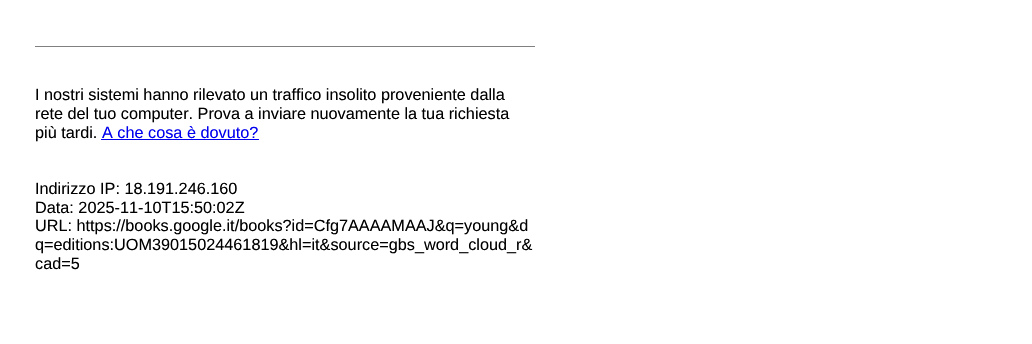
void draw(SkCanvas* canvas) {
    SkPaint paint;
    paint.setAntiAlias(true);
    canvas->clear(0xFFFFFFFF);
    paint.setColor(0xFF808080);
    canvas->drawRect(SkRect::MakeXYWH(35, 46, 500, 1), paint);
    SkFont font1(fontMgr->matchFamilyStyle("Liberation Sans", SkFontStyle::Normal()), 16.25f);
    font1.setSubpixel(true);
    paint.setColor(0xFF000000);
    canvas->drawString("I nostri sistemi hanno rilevato un traffico insolito proveniente dalla", 35, 100, font1, paint);
    canvas->drawString("rete del tuo computer. Prova a inviare nuovamente la tua richiesta", 35, 119, font1, paint);
    canvas->drawString("più tardi.", 35, 138, font1, paint);
    paint.setColor(0xFF0000EE);
    canvas->drawString("A che cosa è dovuto?", 102, 138, font1, paint);
    canvas->drawRect(SkRect::MakeXYWH(101, 139, 158, 1), paint);
    paint.setColor(0xFF000000);
    canvas->drawString("Indirizzo IP: 18.191.246.160", 35, 194, font1, paint);
    canvas->drawString("Data: 2025-11-10T15:50:02Z", 35, 213, font1, paint);
    canvas->drawString("URL: https://books.google.it/books?id=Cfg7AAAAMAAJ&q=young&d", 35, 231, font1, paint);
    canvas->drawString("q=editions:UOM39015024461819&hl=it&source=gbs_word_cloud_r&", 35, 250, font1, paint);
    canvas->drawString("cad=5", 35, 269, font1, paint);
}
